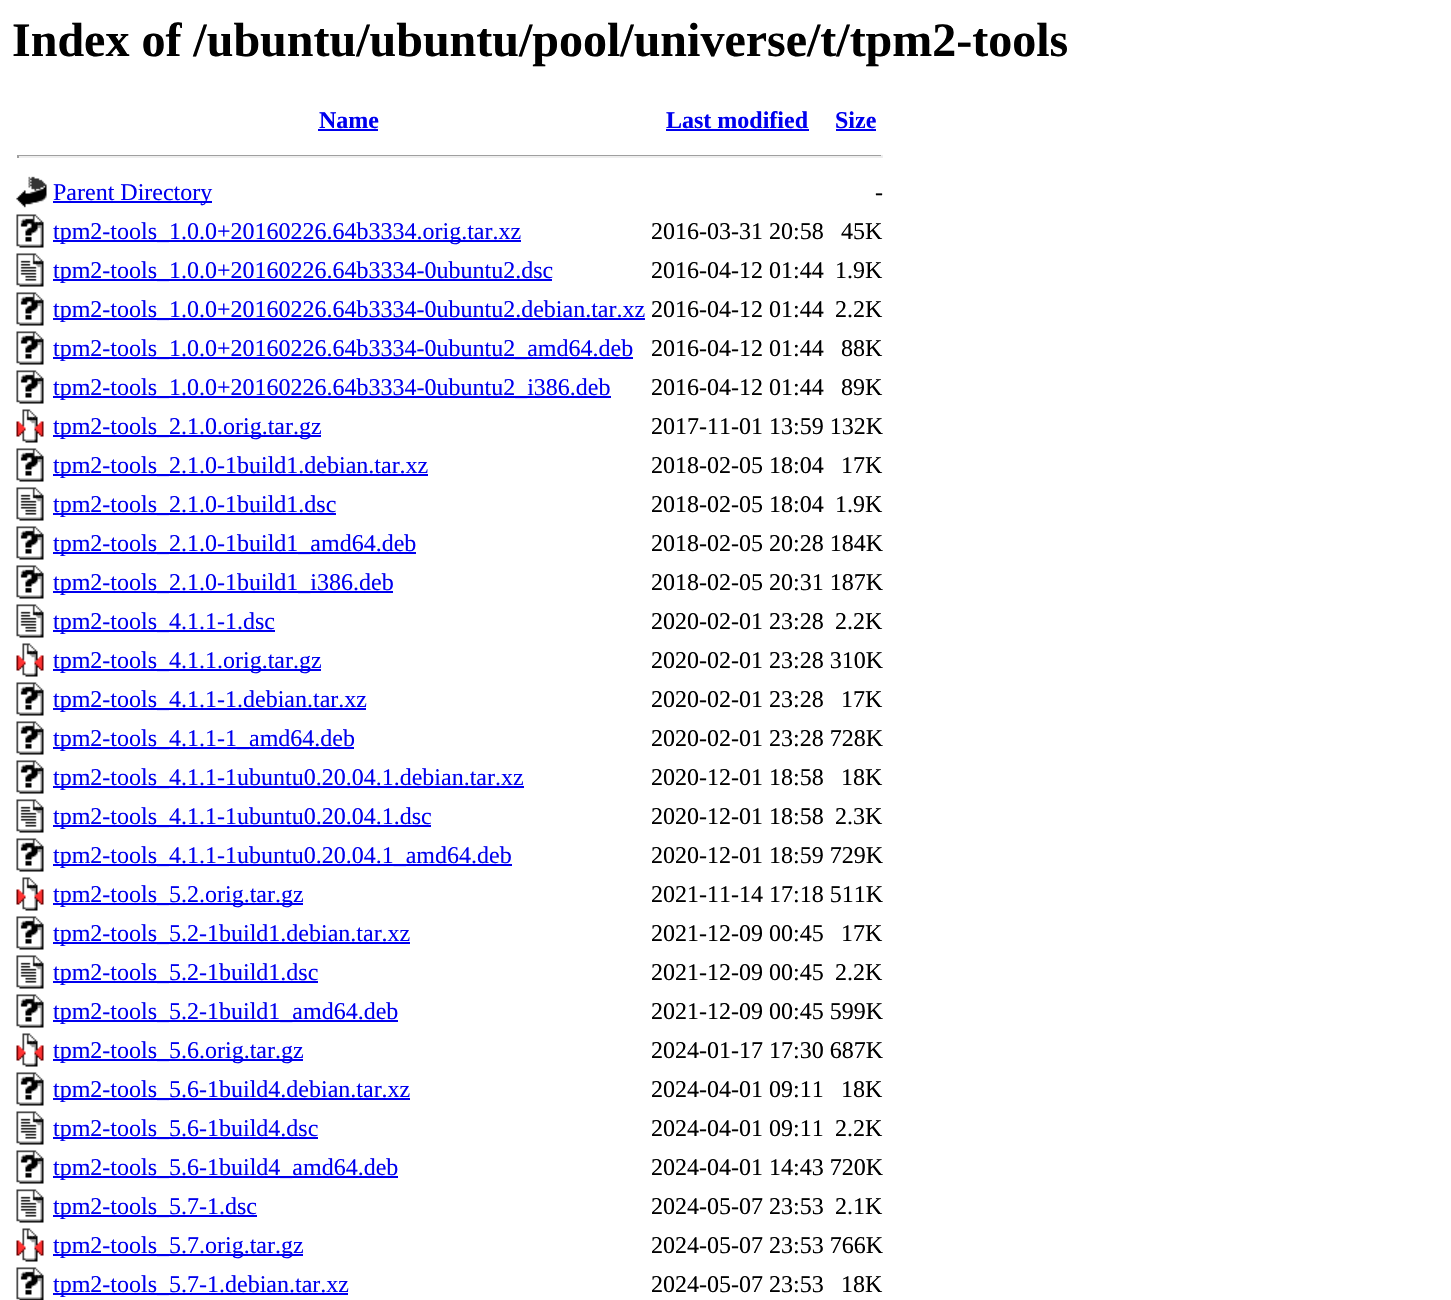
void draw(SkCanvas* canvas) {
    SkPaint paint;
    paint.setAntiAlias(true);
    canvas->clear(0xFFFFFFFF);
    SkFont font1(fontMgr->matchFamilyStyle("Liberation Serif", SkFontStyle::Bold()), 48);
    font1.setSubpixel(true);
    paint.setColor(0xFF000000);
    canvas->drawString("Index of /ubuntu/ubuntu/pool/universe/t/tpm2-tools", 12, 56, font1, paint);
    SkFont font2(fontMgr->matchFamilyStyle("Liberation Serif", SkFontStyle::Bold()), 24);
    font2.setSubpixel(true);
    paint.setColor(0xFF0000EE);
    canvas->drawString("Name", 319, 128, font2, paint);
    canvas->drawRect(SkRect::MakeXYWH(318, 129, 60, 2), paint);
    canvas->drawString("Last modified", 666, 128, font2, paint);
    canvas->drawRect(SkRect::MakeXYWH(666, 129, 143, 2), paint);
    canvas->drawString("Size", 835, 128, font2, paint);
    canvas->drawRect(SkRect::MakeXYWH(836, 129, 40, 2), paint);
    paint.setColor(0xFF9F9F9F);
    canvas->drawRect(SkRect::MakeXYWH(17, 155, 865, 1), paint);
    paint.setColor(0xFFEEEEEE);
    canvas->drawRect(SkRect::MakeXYWH(881, 155, 2, 3), paint);
    canvas->drawRect(SkRect::MakeXYWH(17, 156, 865, 2), paint);
    paint.setColor(0xFF9F9F9F);
    canvas->drawRect(SkRect::MakeXYWH(17, 155, 2, 3), paint);
    canvas->drawImageRect(SkImages::DeferredFromEncodedData(SkData::MakeFromFileName("img1.png")), SkRect::MakeXYWH(16, 176, 31, 32), SkSamplingOptions());
    paint.setColor(0xFF0000EE);
    canvas->drawRect(SkRect::MakeXYWH(53, 201, 159, 2), paint);
    SkFont font3(fontMgr->matchFamilyStyle("Liberation Serif", SkFontStyle::Normal()), 24);
    font3.setSubpixel(true);
    canvas->drawString("Parent Directory", 53, 200, font3, paint);
    paint.setColor(0xFF000000);
    canvas->drawString("-", 875, 200, font3, paint);
    canvas->drawImageRect(SkImages::DeferredFromEncodedData(SkData::MakeFromFileName("img2.png")), SkRect::MakeXYWH(16, 214, 28, 34), SkSamplingOptions());
    paint.setColor(0xFF0000EE);
    canvas->drawRect(SkRect::MakeXYWH(53, 240, 468, 2), paint);
    canvas->drawString("tpm2-tools_1.0.0+20160226.64b3334.orig.tar.xz", 53, 239, font3, paint);
    paint.setColor(0xFF000000);
    canvas->drawString("2016-03-31 20:58", 651, 239, font3, paint);
    canvas->drawString("45K", 841, 239, font3, paint);
    canvas->drawImageRect(SkImages::DeferredFromEncodedData(SkData::MakeFromFileName("img3.png")), SkRect::MakeXYWH(16, 253, 28, 34), SkSamplingOptions());
    paint.setColor(0xFF0000EE);
    canvas->drawRect(SkRect::MakeXYWH(53, 279, 499, 2), paint);
    canvas->drawString("tpm2-tools_1.0.0+20160226.64b3334-0ubuntu2.dsc", 53, 278, font3, paint);
    paint.setColor(0xFF000000);
    canvas->drawString("2016-04-12 01:44", 651, 278, font3, paint);
    canvas->drawString("1.9K", 835, 278, font3, paint);
    canvas->drawImageRect(SkImages::DeferredFromEncodedData(SkData::MakeFromFileName("img2.png")), SkRect::MakeXYWH(16, 292, 28, 34), SkSamplingOptions());
    paint.setColor(0xFF0000EE);
    canvas->drawRect(SkRect::MakeXYWH(53, 318, 592, 2), paint);
    canvas->drawString("tpm2-tools_1.0.0+20160226.64b3334-0ubuntu2.debian.tar.xz", 53, 317, font3, paint);
    paint.setColor(0xFF000000);
    canvas->drawString("2016-04-12 01:44", 651, 317, font3, paint);
    canvas->drawString("2.2K", 835, 317, font3, paint);
    canvas->drawImageRect(SkImages::DeferredFromEncodedData(SkData::MakeFromFileName("img2.png")), SkRect::MakeXYWH(16, 331, 28, 34), SkSamplingOptions());
    paint.setColor(0xFF0000EE);
    canvas->drawRect(SkRect::MakeXYWH(53, 357, 580, 2), paint);
    canvas->drawString("tpm2-tools_1.0.0+20160226.64b3334-0ubuntu2_amd64.deb", 53, 356, font3, paint);
    paint.setColor(0xFF000000);
    canvas->drawString("2016-04-12 01:44", 651, 356, font3, paint);
    canvas->drawString("88K", 841, 356, font3, paint);
    canvas->drawImageRect(SkImages::DeferredFromEncodedData(SkData::MakeFromFileName("img2.png")), SkRect::MakeXYWH(16, 370, 28, 34), SkSamplingOptions());
    paint.setColor(0xFF0000EE);
    canvas->drawRect(SkRect::MakeXYWH(53, 396, 558, 2), paint);
    canvas->drawString("tpm2-tools_1.0.0+20160226.64b3334-0ubuntu2_i386.deb", 53, 395, font3, paint);
    paint.setColor(0xFF000000);
    canvas->drawString("2016-04-12 01:44", 651, 395, font3, paint);
    canvas->drawString("89K", 841, 395, font3, paint);
    canvas->drawImageRect(SkImages::DeferredFromEncodedData(SkData::MakeFromFileName("img4.png")), SkRect::MakeXYWH(16, 409, 28, 34), SkSamplingOptions());
    paint.setColor(0xFF0000EE);
    canvas->drawRect(SkRect::MakeXYWH(53, 435, 268, 2), paint);
    canvas->drawString("tpm2-tools_2.1.0.orig.tar.gz", 53, 434, font3, paint);
    paint.setColor(0xFF000000);
    canvas->drawString("2017-11-01 13:59 132K", 651, 434, font3, paint);
    canvas->drawImageRect(SkImages::DeferredFromEncodedData(SkData::MakeFromFileName("img2.png")), SkRect::MakeXYWH(16, 448, 28, 34), SkSamplingOptions());
    paint.setColor(0xFF0000EE);
    canvas->drawRect(SkRect::MakeXYWH(53, 474, 375, 2), paint);
    canvas->drawString("tpm2-tools_2.1.0-1build1.debian.tar.xz", 53, 473, font3, paint);
    paint.setColor(0xFF000000);
    canvas->drawString("2018-02-05 18:04", 651, 473, font3, paint);
    canvas->drawString("17K", 841, 473, font3, paint);
    canvas->drawImageRect(SkImages::DeferredFromEncodedData(SkData::MakeFromFileName("img3.png")), SkRect::MakeXYWH(16, 487, 28, 34), SkSamplingOptions());
    paint.setColor(0xFF0000EE);
    canvas->drawRect(SkRect::MakeXYWH(53, 513, 283, 2), paint);
    canvas->drawString("tpm2-tools_2.1.0-1build1.dsc", 53, 512, font3, paint);
    paint.setColor(0xFF000000);
    canvas->drawString("2018-02-05 18:04", 651, 512, font3, paint);
    canvas->drawString("1.9K", 835, 512, font3, paint);
    canvas->drawImageRect(SkImages::DeferredFromEncodedData(SkData::MakeFromFileName("img2.png")), SkRect::MakeXYWH(16, 526, 28, 34), SkSamplingOptions());
    paint.setColor(0xFF0000EE);
    canvas->drawRect(SkRect::MakeXYWH(53, 552, 363, 2), paint);
    canvas->drawString("tpm2-tools_2.1.0-1build1_amd64.deb", 53, 551, font3, paint);
    paint.setColor(0xFF000000);
    canvas->drawString("2018-02-05 20:28 184K", 651, 551, font3, paint);
    canvas->drawImageRect(SkImages::DeferredFromEncodedData(SkData::MakeFromFileName("img2.png")), SkRect::MakeXYWH(16, 565, 28, 34), SkSamplingOptions());
    paint.setColor(0xFF0000EE);
    canvas->drawRect(SkRect::MakeXYWH(53, 591, 340, 2), paint);
    canvas->drawString("tpm2-tools_2.1.0-1build1_i386.deb", 53, 590, font3, paint);
    paint.setColor(0xFF000000);
    canvas->drawString("2018-02-05 20:31 187K", 651, 590, font3, paint);
    canvas->drawImageRect(SkImages::DeferredFromEncodedData(SkData::MakeFromFileName("img3.png")), SkRect::MakeXYWH(16, 604, 28, 34), SkSamplingOptions());
    paint.setColor(0xFF0000EE);
    canvas->drawRect(SkRect::MakeXYWH(53, 630, 222, 2), paint);
    canvas->drawString("tpm2-tools_4.1.1-1.dsc", 53, 629, font3, paint);
    paint.setColor(0xFF000000);
    canvas->drawString("2020-02-01 23:28", 651, 629, font3, paint);
    canvas->drawString("2.2K", 835, 629, font3, paint);
    canvas->drawImageRect(SkImages::DeferredFromEncodedData(SkData::MakeFromFileName("img4.png")), SkRect::MakeXYWH(16, 643, 28, 34), SkSamplingOptions());
    paint.setColor(0xFF0000EE);
    canvas->drawRect(SkRect::MakeXYWH(53, 669, 268, 2), paint);
    canvas->drawString("tpm2-tools_4.1.1.orig.tar.gz", 53, 668, font3, paint);
    paint.setColor(0xFF000000);
    canvas->drawString("2020-02-01 23:28 310K", 651, 668, font3, paint);
    canvas->drawImageRect(SkImages::DeferredFromEncodedData(SkData::MakeFromFileName("img2.png")), SkRect::MakeXYWH(16, 682, 28, 34), SkSamplingOptions());
    paint.setColor(0xFF0000EE);
    canvas->drawRect(SkRect::MakeXYWH(53, 708, 313, 2), paint);
    canvas->drawString("tpm2-tools_4.1.1-1.debian.tar.xz", 53, 707, font3, paint);
    paint.setColor(0xFF000000);
    canvas->drawString("2020-02-01 23:28", 651, 707, font3, paint);
    canvas->drawString("17K", 841, 707, font3, paint);
    canvas->drawImageRect(SkImages::DeferredFromEncodedData(SkData::MakeFromFileName("img2.png")), SkRect::MakeXYWH(16, 721, 28, 34), SkSamplingOptions());
    paint.setColor(0xFF0000EE);
    canvas->drawRect(SkRect::MakeXYWH(53, 747, 301, 2), paint);
    canvas->drawString("tpm2-tools_4.1.1-1_amd64.deb", 53, 746, font3, paint);
    paint.setColor(0xFF000000);
    canvas->drawString("2020-02-01 23:28 728K", 651, 746, font3, paint);
    canvas->drawImageRect(SkImages::DeferredFromEncodedData(SkData::MakeFromFileName("img2.png")), SkRect::MakeXYWH(16, 760, 28, 34), SkSamplingOptions());
    paint.setColor(0xFF0000EE);
    canvas->drawRect(SkRect::MakeXYWH(53, 786, 471, 2), paint);
    canvas->drawString("tpm2-tools_4.1.1-1ubuntu0.20.04.1.debian.tar.xz", 53, 785, font3, paint);
    paint.setColor(0xFF000000);
    canvas->drawString("2020-12-01 18:58", 651, 785, font3, paint);
    canvas->drawString("18K", 841, 785, font3, paint);
    canvas->drawImageRect(SkImages::DeferredFromEncodedData(SkData::MakeFromFileName("img3.png")), SkRect::MakeXYWH(16, 799, 28, 34), SkSamplingOptions());
    paint.setColor(0xFF0000EE);
    canvas->drawRect(SkRect::MakeXYWH(53, 825, 378, 2), paint);
    canvas->drawString("tpm2-tools_4.1.1-1ubuntu0.20.04.1.dsc", 53, 824, font3, paint);
    paint.setColor(0xFF000000);
    canvas->drawString("2020-12-01 18:58", 651, 824, font3, paint);
    canvas->drawString("2.3K", 835, 824, font3, paint);
    canvas->drawImageRect(SkImages::DeferredFromEncodedData(SkData::MakeFromFileName("img2.png")), SkRect::MakeXYWH(16, 838, 28, 34), SkSamplingOptions());
    paint.setColor(0xFF0000EE);
    canvas->drawRect(SkRect::MakeXYWH(53, 864, 459, 2), paint);
    canvas->drawString("tpm2-tools_4.1.1-1ubuntu0.20.04.1_amd64.deb", 53, 863, font3, paint);
    paint.setColor(0xFF000000);
    canvas->drawString("2020-12-01 18:59 729K", 651, 863, font3, paint);
    canvas->drawImageRect(SkImages::DeferredFromEncodedData(SkData::MakeFromFileName("img4.png")), SkRect::MakeXYWH(16, 877, 28, 34), SkSamplingOptions());
    paint.setColor(0xFF0000EE);
    canvas->drawRect(SkRect::MakeXYWH(53, 903, 250, 2), paint);
    canvas->drawString("tpm2-tools_5.2.orig.tar.gz", 53, 902, font3, paint);
    paint.setColor(0xFF000000);
    canvas->drawString("2021-11-14 17:18 511K", 651, 902, font3, paint);
    canvas->drawImageRect(SkImages::DeferredFromEncodedData(SkData::MakeFromFileName("img2.png")), SkRect::MakeXYWH(16, 916, 28, 34), SkSamplingOptions());
    paint.setColor(0xFF0000EE);
    canvas->drawRect(SkRect::MakeXYWH(53, 942, 357, 2), paint);
    canvas->drawString("tpm2-tools_5.2-1build1.debian.tar.xz", 53, 941, font3, paint);
    paint.setColor(0xFF000000);
    canvas->drawString("2021-12-09 00:45", 651, 941, font3, paint);
    canvas->drawString("17K", 841, 941, font3, paint);
    canvas->drawImageRect(SkImages::DeferredFromEncodedData(SkData::MakeFromFileName("img3.png")), SkRect::MakeXYWH(16, 955, 28, 34), SkSamplingOptions());
    paint.setColor(0xFF0000EE);
    canvas->drawRect(SkRect::MakeXYWH(53, 981, 265, 2), paint);
    canvas->drawString("tpm2-tools_5.2-1build1.dsc", 53, 980, font3, paint);
    paint.setColor(0xFF000000);
    canvas->drawString("2021-12-09 00:45", 651, 980, font3, paint);
    canvas->drawString("2.2K", 835, 980, font3, paint);
    canvas->drawImageRect(SkImages::DeferredFromEncodedData(SkData::MakeFromFileName("img2.png")), SkRect::MakeXYWH(16, 994, 28, 34), SkSamplingOptions());
    paint.setColor(0xFF0000EE);
    canvas->drawRect(SkRect::MakeXYWH(53, 1020, 345, 2), paint);
    canvas->drawString("tpm2-tools_5.2-1build1_amd64.deb", 53, 1019, font3, paint);
    paint.setColor(0xFF000000);
    canvas->drawString("2021-12-09 00:45 599K", 651, 1019, font3, paint);
    canvas->drawImageRect(SkImages::DeferredFromEncodedData(SkData::MakeFromFileName("img4.png")), SkRect::MakeXYWH(16, 1033, 28, 34), SkSamplingOptions());
    paint.setColor(0xFF0000EE);
    canvas->drawRect(SkRect::MakeXYWH(53, 1059, 250, 2), paint);
    canvas->drawString("tpm2-tools_5.6.orig.tar.gz", 53, 1058, font3, paint);
    paint.setColor(0xFF000000);
    canvas->drawString("2024-01-17 17:30 687K", 651, 1058, font3, paint);
    canvas->drawImageRect(SkImages::DeferredFromEncodedData(SkData::MakeFromFileName("img2.png")), SkRect::MakeXYWH(16, 1072, 28, 34), SkSamplingOptions());
    paint.setColor(0xFF0000EE);
    canvas->drawRect(SkRect::MakeXYWH(53, 1098, 357, 2), paint);
    canvas->drawString("tpm2-tools_5.6-1build4.debian.tar.xz", 53, 1097, font3, paint);
    paint.setColor(0xFF000000);
    canvas->drawString("2024-04-01 09:11", 651, 1097, font3, paint);
    canvas->drawString("18K", 841, 1097, font3, paint);
    canvas->drawImageRect(SkImages::DeferredFromEncodedData(SkData::MakeFromFileName("img3.png")), SkRect::MakeXYWH(16, 1111, 28, 34), SkSamplingOptions());
    paint.setColor(0xFF0000EE);
    canvas->drawRect(SkRect::MakeXYWH(53, 1137, 265, 2), paint);
    canvas->drawString("tpm2-tools_5.6-1build4.dsc", 53, 1136, font3, paint);
    paint.setColor(0xFF000000);
    canvas->drawString("2024-04-01 09:11", 651, 1136, font3, paint);
    canvas->drawString("2.2K", 835, 1136, font3, paint);
    canvas->drawImageRect(SkImages::DeferredFromEncodedData(SkData::MakeFromFileName("img2.png")), SkRect::MakeXYWH(16, 1150, 28, 34), SkSamplingOptions());
    paint.setColor(0xFF0000EE);
    canvas->drawRect(SkRect::MakeXYWH(53, 1176, 345, 2), paint);
    canvas->drawString("tpm2-tools_5.6-1build4_amd64.deb", 53, 1175, font3, paint);
    paint.setColor(0xFF000000);
    canvas->drawString("2024-04-01 14:43 720K", 651, 1175, font3, paint);
    canvas->drawImageRect(SkImages::DeferredFromEncodedData(SkData::MakeFromFileName("img3.png")), SkRect::MakeXYWH(16, 1189, 28, 34), SkSamplingOptions());
    paint.setColor(0xFF0000EE);
    canvas->drawRect(SkRect::MakeXYWH(53, 1215, 204, 2), paint);
    canvas->drawString("tpm2-tools_5.7-1.dsc", 53, 1214, font3, paint);
    paint.setColor(0xFF000000);
    canvas->drawString("2024-05-07 23:53", 651, 1214, font3, paint);
    canvas->drawString("2.1K", 835, 1214, font3, paint);
    canvas->drawImageRect(SkImages::DeferredFromEncodedData(SkData::MakeFromFileName("img4.png")), SkRect::MakeXYWH(16, 1228, 28, 34), SkSamplingOptions());
    paint.setColor(0xFF0000EE);
    canvas->drawRect(SkRect::MakeXYWH(53, 1254, 250, 2), paint);
    canvas->drawString("tpm2-tools_5.7.orig.tar.gz", 53, 1253, font3, paint);
    paint.setColor(0xFF000000);
    canvas->drawString("2024-05-07 23:53 766K", 651, 1253, font3, paint);
    canvas->drawImageRect(SkImages::DeferredFromEncodedData(SkData::MakeFromFileName("img5.png")), SkRect::MakeXYWH(16, 1267, 28, 33), SkSamplingOptions());
    paint.setColor(0xFF0000EE);
    canvas->drawRect(SkRect::MakeXYWH(53, 1293, 295, 2), paint);
    canvas->drawString("tpm2-tools_5.7-1.debian.tar.xz", 53, 1292, font3, paint);
    paint.setColor(0xFF000000);
    canvas->drawString("2024-05-07 23:53", 651, 1292, font3, paint);
    canvas->drawString("18K", 841, 1292, font3, paint);
}
